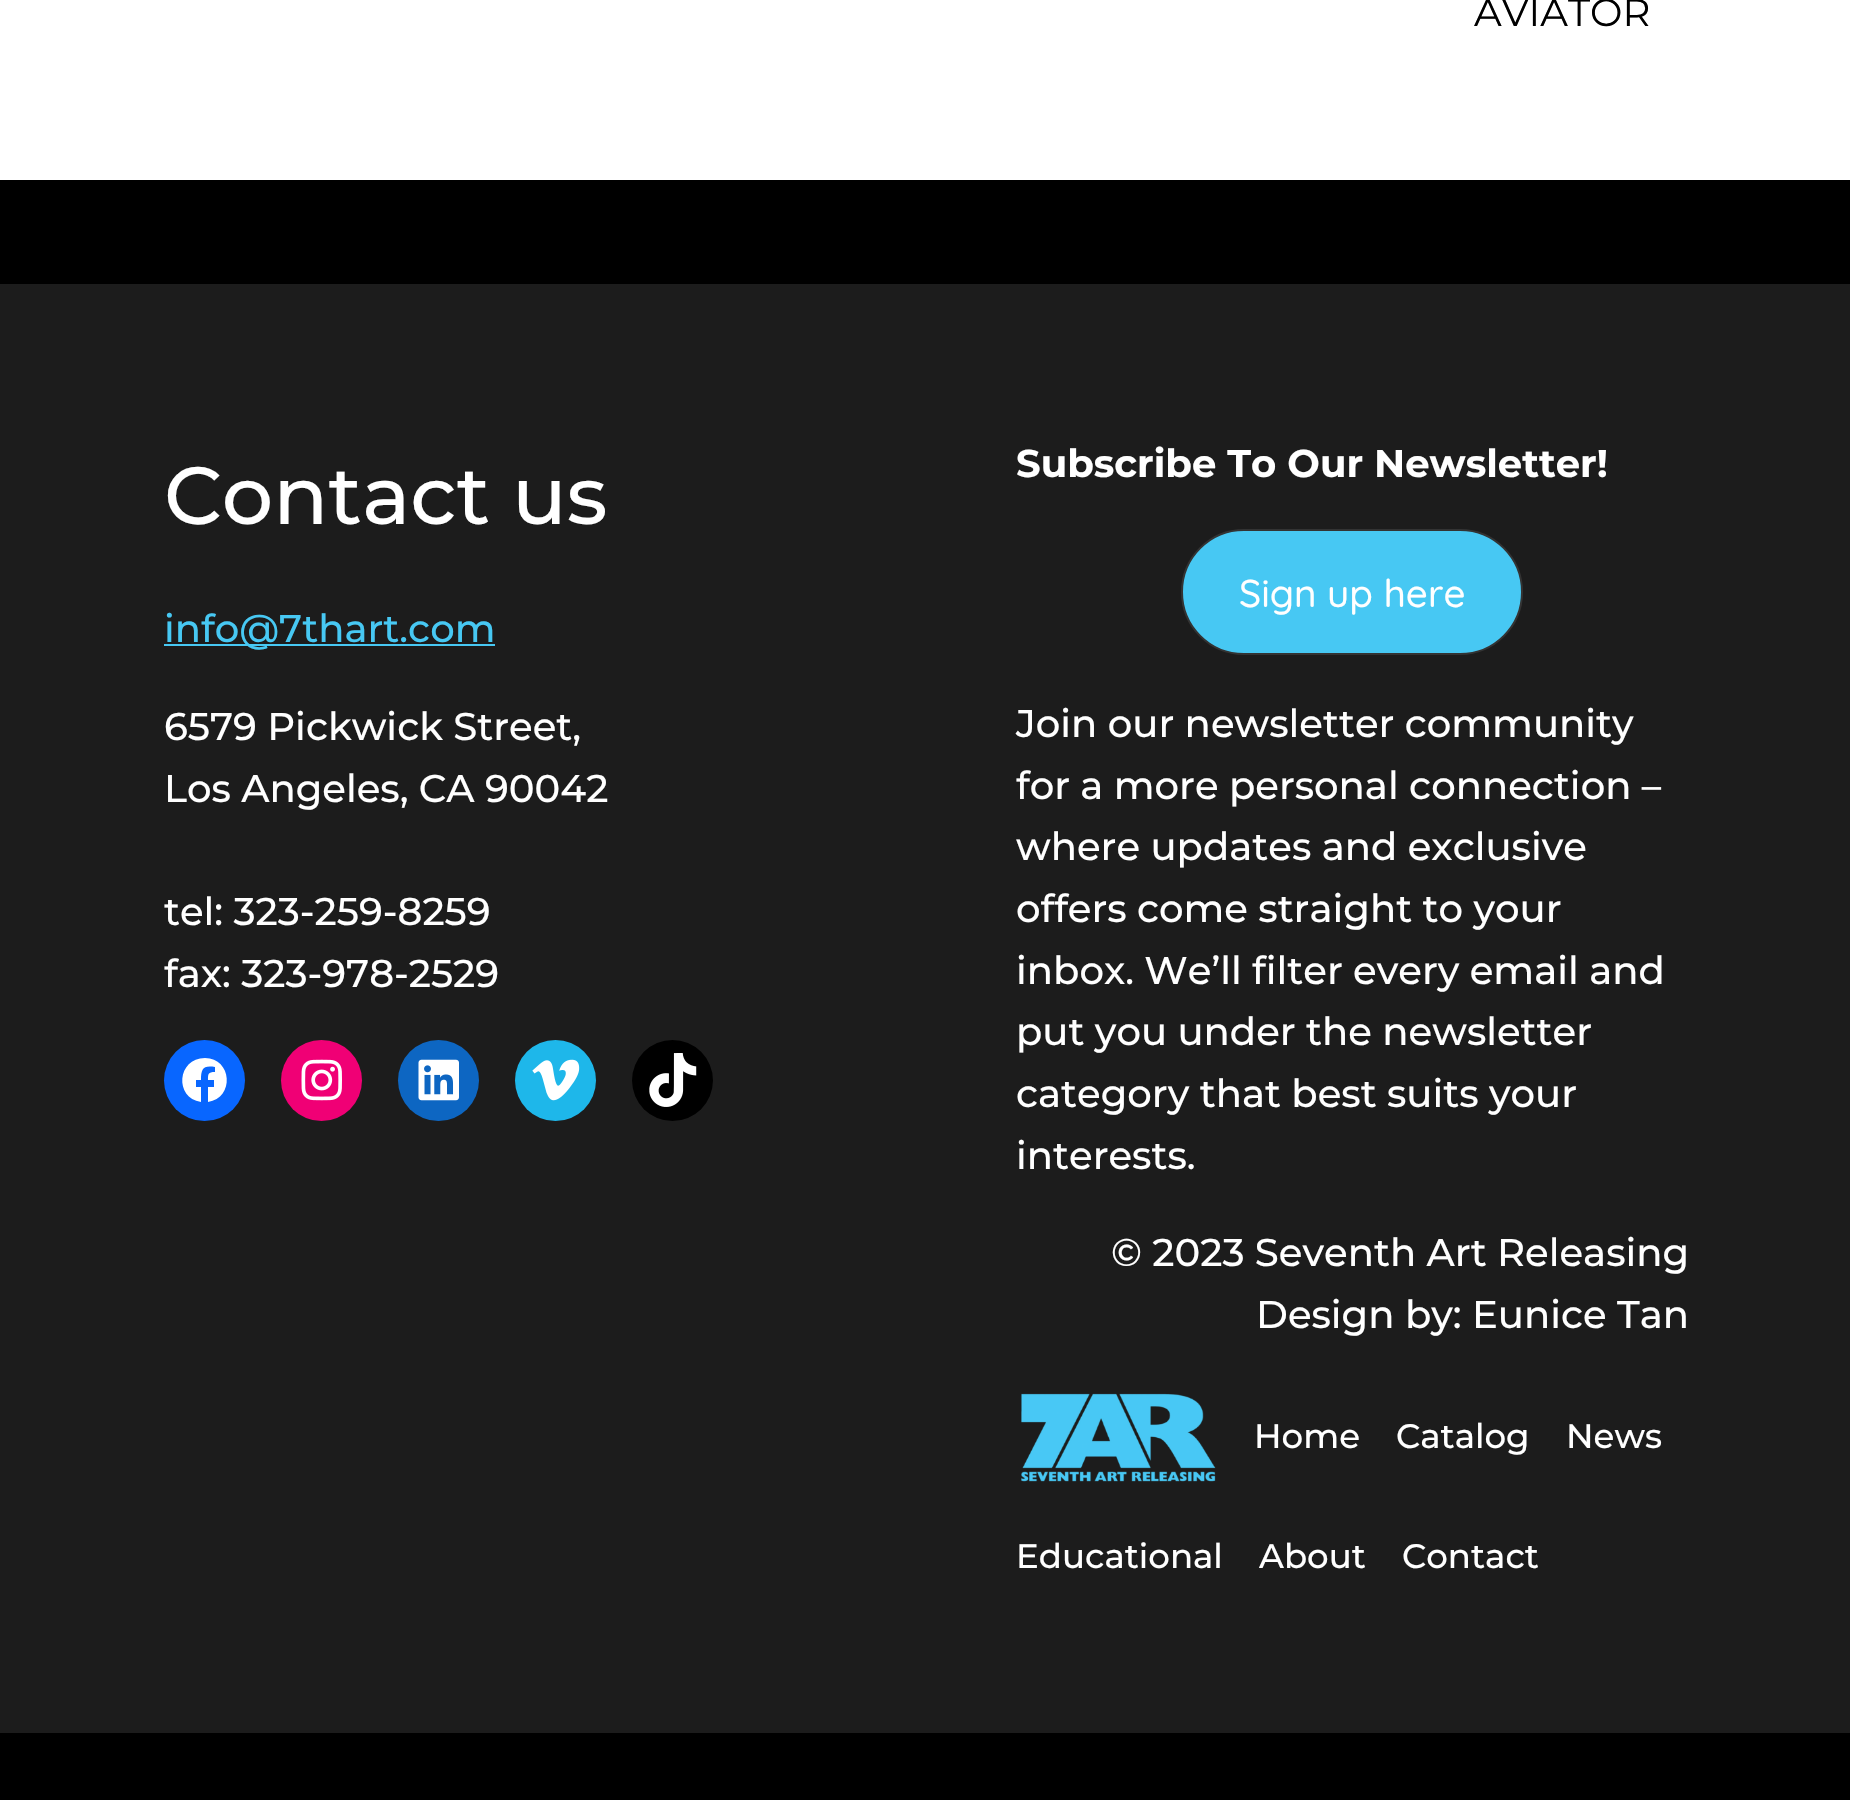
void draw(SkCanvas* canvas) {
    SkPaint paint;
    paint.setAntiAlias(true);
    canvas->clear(0xFF000000);
    paint.setColor(0xFFFFFFFF);
    canvas->drawRect(SkRect::MakeXYWH(0, 0, 1850, 180), paint);
    SkFont font1(fontMgr->matchFamilyStyle("Montserrat", SkFontStyle::Normal()), 38.6f);
    font1.setSubpixel(true);
    paint.setColor(0xFF000000);
    canvas->drawString("AVIATOR", 1474, 26, font1, paint);
    paint.setColor(0xFF1C1C1C);
    canvas->drawRect(SkRect::MakeXYWH(0, 284, 1850, 1449), paint);
    SkFont font2(fontMgr->matchFamilyStyle("Montserrat", SkFontStyle(500, SkFontStyle::kNormal_Width, SkFontStyle::kUpright_Slant)), 81);
    font2.setSubpixel(true);
    paint.setColor(0xFFFFFFFF);
    canvas->drawString("Contact us", 164, 524, font2, paint);
    paint.setColor(0xFF47C8F3);
    canvas->drawRect(SkRect::MakeXYWH(164, 644, 331, 2), paint);
    SkFont font3(fontMgr->matchFamilyStyle("Montserrat", SkFontStyle(500, SkFontStyle::kNormal_Width, SkFontStyle::kUpright_Slant)), 38.6f);
    font3.setSubpixel(true);
    canvas->drawString("info@7thart.com", 164, 642, font3, paint);
    paint.setColor(0xFFFFFFFF);
    canvas->drawString("6579 Pickwick Street,", 164, 740, font3, paint);
    canvas->drawString("Los Angeles, CA 90042", 164, 802, font3, paint);
    canvas->drawString("tel: 323-259-8259", 164, 925, font3, paint);
    canvas->drawString("fax: 323-978-2529", 164, 987, font3, paint);
    paint.setColor(0xFF0866FF);
    canvas->drawCircle(204.5f, 1080.5f, 40.5f, paint);
    paint.setColor(0xFFFFFFFF);
    canvas->drawPath(SkPathBuilder().moveTo(205, 1058).cubicTo(177, 1058, 174, 1098, 201, 1102).lineTo(201, 1087).lineTo(196, 1087).lineTo(196, 1080).lineTo(201, 1080).cubicTo(201, 1069, 203, 1065, 215, 1067).lineTo(215, 1072).cubicTo(208, 1072, 208, 1074, 208, 1080).lineTo(214, 1080).lineTo(214, 1087).lineTo(208, 1087).lineTo(208, 1102).cubicTo(235, 1098, 232, 1058, 205, 1058).close().detach(), paint);
    paint.setColor(0xFFF00075);
    canvas->drawCircle(321.5f, 1080.5f, 40.5f, paint);
    canvas->drawImageRect(SkImages::DeferredFromEncodedData(SkData::MakeFromFileName("img1.png")), SkRect::MakeXYWH(301, 1059, 41, 42), SkSamplingOptions());
    paint.setColor(0xFF0D66C2);
    canvas->drawCircle(438.5f, 1080.5f, 40.5f, paint);
    canvas->drawImageRect(SkImages::DeferredFromEncodedData(SkData::MakeFromFileName("img2.png")), SkRect::MakeXYWH(418, 1059, 41, 42), SkSamplingOptions());
    paint.setColor(0xFF1EB7EA);
    canvas->drawCircle(555.5f, 1080.5f, 40.5f, paint);
    canvas->drawImageRect(SkImages::DeferredFromEncodedData(SkData::MakeFromFileName("img3.png")), SkRect::MakeXYWH(532, 1059, 48, 42), SkSamplingOptions());
    paint.setColor(0xFF000000);
    canvas->drawCircle(672.5f, 1080.5f, 40.5f, paint);
    canvas->drawImageRect(SkImages::DeferredFromEncodedData(SkData::MakeFromFileName("img4.png")), SkRect::MakeXYWH(649, 1053, 48, 54), SkSamplingOptions());
    SkFont font4(fontMgr->matchFamilyStyle("Montserrat", SkFontStyle::Bold()), 38.6f);
    font4.setSubpixel(true);
    paint.setColor(0xFFFFFFFF);
    canvas->drawString("Subscribe To Our Newsletter!", 1016, 477, font4, paint);
    paint.setColor(0xFF47C8F3);
    canvas->drawRoundRect(SkRect::MakeXYWH(1182, 530, 340, 124), 62, 62, paint);
    paint.setStyle(SkPaint::kStroke_Style);
    paint.setStrokeWidth(2);
    paint.setColor(0xFF333333);
    canvas->drawRoundRect(SkRect::MakeXYWH(1182, 530, 340, 124), 62, 62, paint);
    SkFont font5(fontMgr->matchFamilyStyle("Quicksand", SkFontStyle(500, SkFontStyle::kNormal_Width, SkFontStyle::kUpright_Slant)), 38.6f);
    font5.setSubpixel(true);
    paint.setStyle(SkPaint::kFill_Style);
    paint.setColor(0xFFFFFFFF);
    canvas->drawString("Sign up here", 1239, 607, font5, paint);
    canvas->drawString("Join our newsletter community", 1016, 737, font3, paint);
    canvas->drawString("for a more personal connection –", 1016, 799, font3, paint);
    canvas->drawString("where updates and exclusive", 1016, 860, font3, paint);
    canvas->drawString("offers come straight to your", 1016, 922, font3, paint);
    canvas->drawString("inbox. We’ll filter every email and", 1016, 984, font3, paint);
    canvas->drawString("put you under the newsletter", 1016, 1045, font3, paint);
    canvas->drawString("category that best suits your", 1016, 1107, font3, paint);
    canvas->drawString("interests.", 1016, 1169, font3, paint);
    canvas->drawString("© 2023 Seventh Art Releasing", 1111, 1266, font3, paint);
    canvas->drawString("Design by: Eunice Tan", 1256, 1328, font3, paint);
    canvas->drawImageRect(SkImages::DeferredFromEncodedData(SkData::MakeFromFileName("img5.png")), SkRect::MakeXYWH(1021, 1393, 195, 89), SkSamplingOptions());
    SkFont font6(fontMgr->matchFamilyStyle("Montserrat", SkFontStyle(500, SkFontStyle::kNormal_Width, SkFontStyle::kUpright_Slant)), 34);
    font6.setSubpixel(true);
    canvas->drawString("Home", 1254, 1448, font6, paint);
    canvas->drawString("Catalog", 1396, 1448, font6, paint);
    canvas->drawString("News", 1566, 1448, font6, paint);
    canvas->drawString("Educational", 1016, 1568, font6, paint);
    canvas->drawString("About", 1259, 1568, font6, paint);
    canvas->drawString("Contact", 1402, 1568, font6, paint);
}
